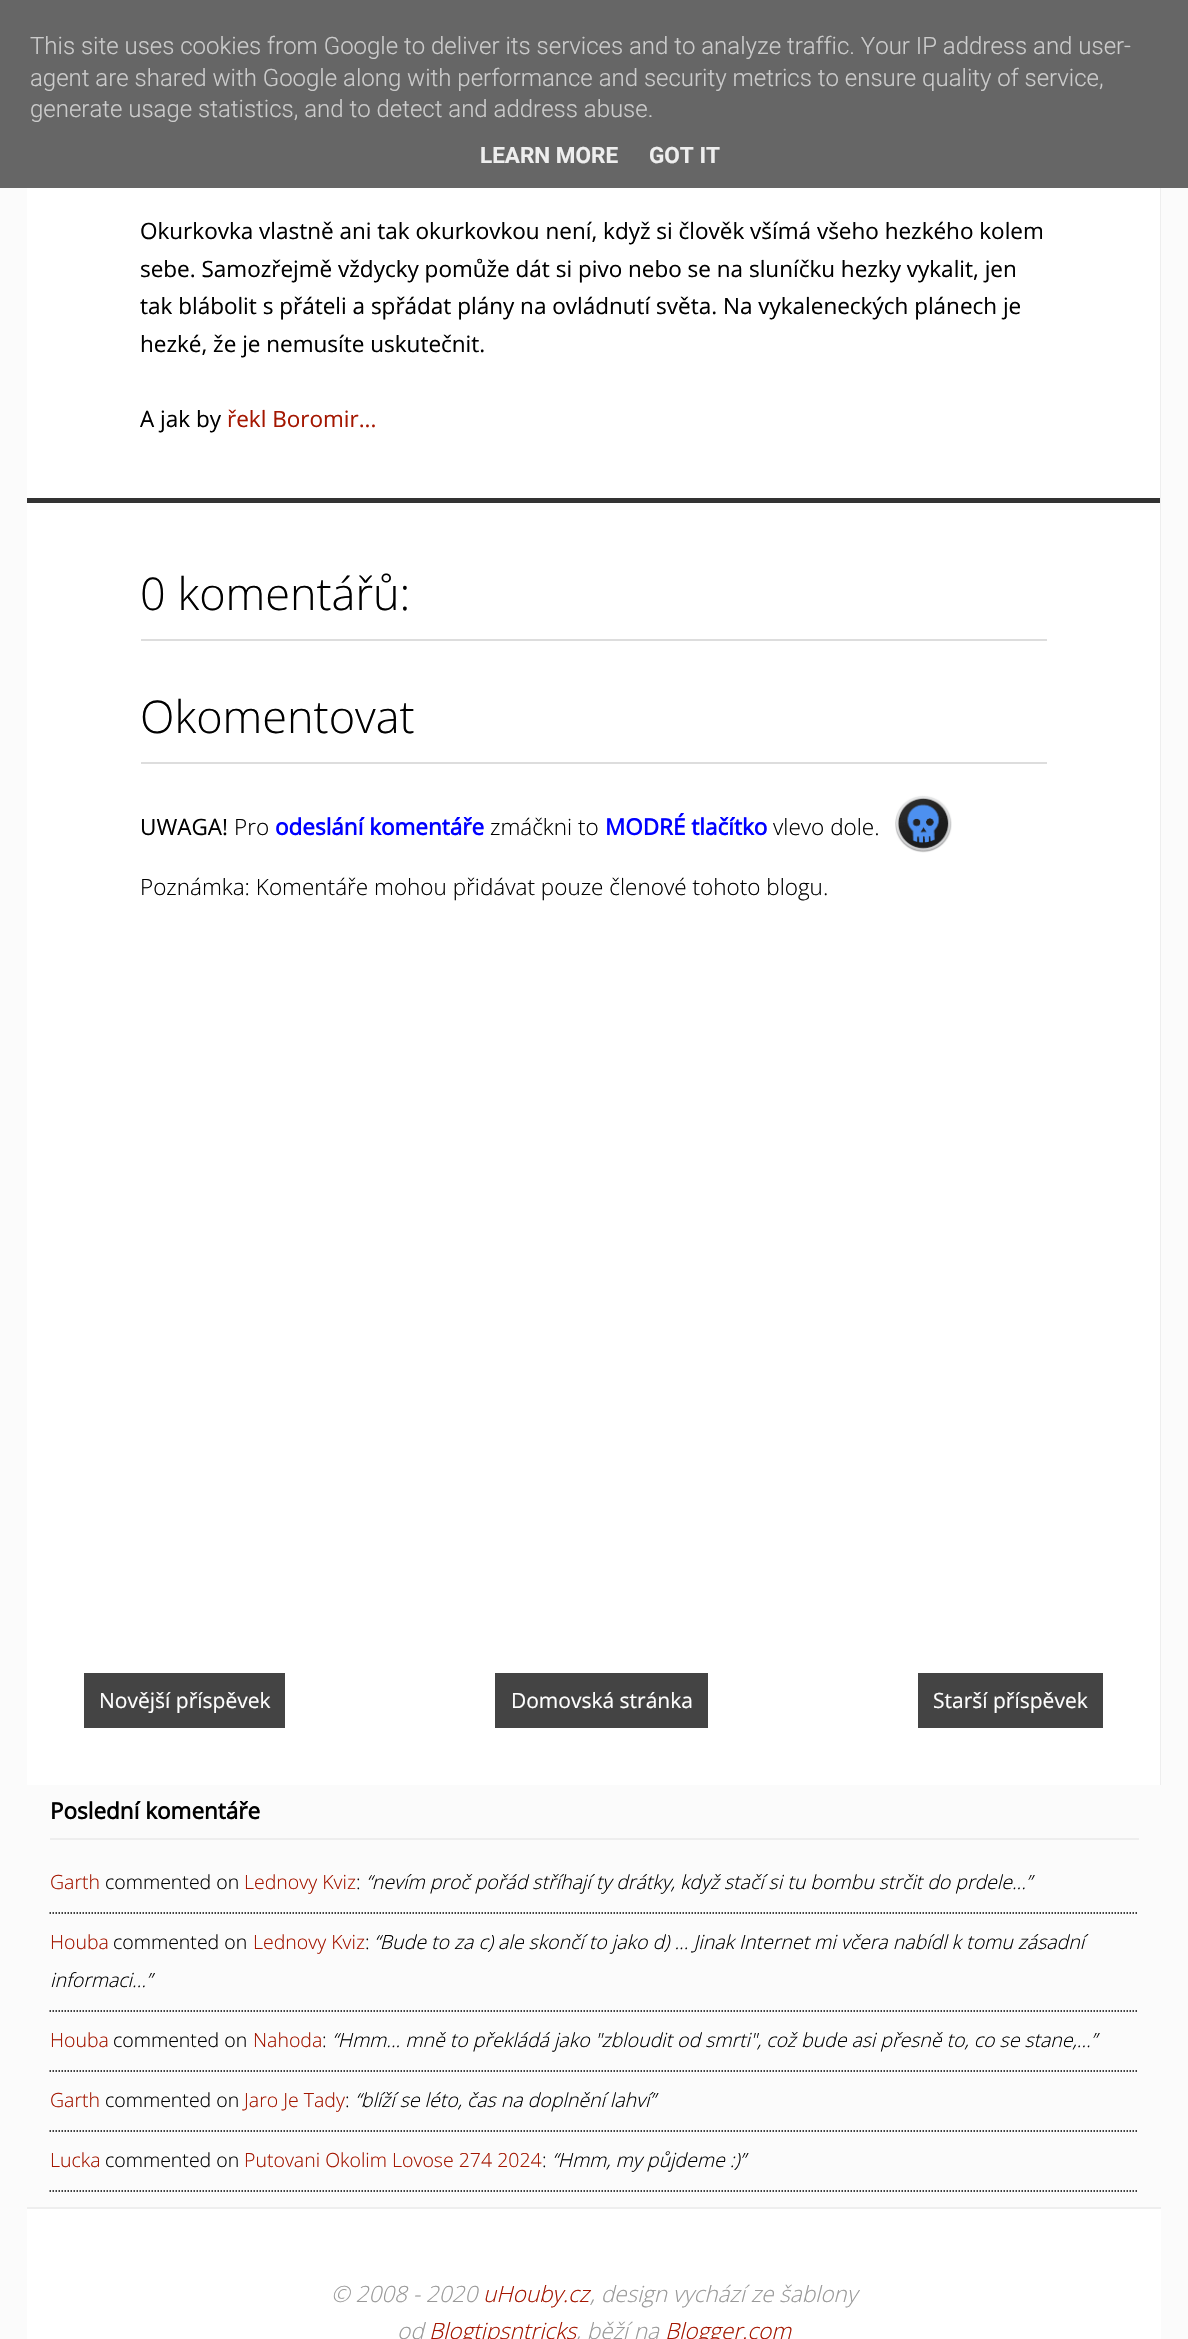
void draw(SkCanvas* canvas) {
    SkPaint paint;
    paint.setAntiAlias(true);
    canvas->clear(0xFFFBFBFB);
    paint.setColor(0xFF666666);
    canvas->drawRect(SkRect::MakeXYWH(0, 0, 1188, 188), paint);
    SkFont font1(fontMgr->matchFamilyStyle("Roboto", SkFontStyle(300, SkFontStyle::kNormal_Width, SkFontStyle::kUpright_Slant)), 24);
    font1.setSubpixel(true);
    paint.setColor(0xFFCCCCCC);
    canvas->drawString("This site uses cookies from Google to deliver its services and to analyze traffic. Your IP address and user-", 30, 54, font1, paint);
    canvas->drawString("agent are shared with Google along with performance and security metrics to ensure quality of service,", 30, 86, font1, paint);
    canvas->drawString("generate usage statistics, and to detect and address abuse.", 30, 117, font1, paint);
    SkFont font2(fontMgr->matchFamilyStyle("Roboto", SkFontStyle::Bold()), 22.5f);
    font2.setSubpixel(true);
    paint.setColor(0xFFEEEEEE);
    canvas->drawString("LEARN MORE", 480, 163, font2, paint);
    canvas->drawString("GOT IT", 649, 163, font2, paint);
    paint.setColor(0xFFFFFFFF);
    canvas->drawRect(SkRect::MakeXYWH(27, 188, 1133, 1597), paint);
    paint.setColor(0xFFEEEEEE);
    canvas->drawRect(SkRect::MakeXYWH(1160, 188, 1, 1597), paint);
    SkFont font3(fontMgr->matchFamilyStyle("Open Sans", SkFontStyle::Normal()), 22.5f);
    font3.setSubpixel(true);
    paint.setColor(0xFF000000);
    canvas->drawString("Okurkovka vlastně ani tak okurkovkou není, když si člověk všímá všeho hezkého kolem", 140, 239, font3, paint);
    canvas->drawString("sebe. Samozřejmě vždycky pomůže dát si pivo nebo se na sluníčku hezky vykalit, jen", 140, 277, font3, paint);
    canvas->drawString("tak blábolit s přáteli a spřádat plány na ovládnutí světa. Na vykaleneckých plánech je", 140, 314, font3, paint);
    canvas->drawString("hezké, že je nemusíte uskutečnit.", 140, 352, font3, paint);
    canvas->drawString("A jak by", 140, 427, font3, paint);
    paint.setColor(0xFFA41600);
    canvas->drawString("řekl Boromir...", 227, 427, font3, paint);
    paint.setColor(0xFF333333);
    canvas->drawRect(SkRect::MakeXYWH(27, 498, 1133, 5), paint);
    paint.setColor(0xFFDDDDDD);
    canvas->drawRect(SkRect::MakeXYWH(141, 639, 906, 2), paint);
    SkFont font4(fontMgr->matchFamilyStyle("Open Sans", SkFontStyle(300, SkFontStyle::kNormal_Width, SkFontStyle::kUpright_Slant)), 45);
    font4.setSubpixel(true);
    paint.setColor(0xFF000000);
    canvas->drawString("0 komentářů:", 140, 610, font4, paint);
    paint.setColor(0xFFDDDDDD);
    canvas->drawRect(SkRect::MakeXYWH(141, 762, 906, 2), paint);
    paint.setColor(0xFF000000);
    canvas->drawString("Okomentovat", 140, 733, font4, paint);
    canvas->drawString("UWAGA!", 140, 835, font3, paint);
    SkFont font5(fontMgr->matchFamilyStyle("Open Sans", SkFontStyle(300, SkFontStyle::kNormal_Width, SkFontStyle::kUpright_Slant)), 22.5f);
    font5.setSubpixel(true);
    canvas->drawString("Pro", 234, 835, font5, paint);
    SkFont font6(fontMgr->matchFamilyStyle("Open Sans", SkFontStyle::Bold()), 22.5f);
    font6.setSubpixel(true);
    paint.setColor(0xFF0000FF);
    canvas->drawString("odeslání komentáře", 275, 835, font6, paint);
    paint.setColor(0xFF000000);
    canvas->drawString("zmáčkni to", 490, 835, font5, paint);
    paint.setColor(0xFF0000FF);
    canvas->drawString("MODRÉ tlačítko", 605, 835, font6, paint);
    paint.setColor(0xFF000000);
    canvas->drawString("vlevo dole.", 773, 835, font5, paint);
    canvas->drawImageRect(SkImages::DeferredFromEncodedData(SkData::MakeFromFileName("img1.png")), SkRect::MakeXYWH(895, 795, 57, 58), SkSamplingOptions());
    canvas->drawString("Poznámka: Komentáře mohou přidávat pouze členové tohoto blogu.", 140, 895, font5, paint);
    paint.setColor(0xFF444444);
    canvas->drawRect(SkRect::MakeXYWH(84, 1673, 201, 55), paint);
    SkFont font7(fontMgr->matchFamilyStyle("Open Sans", SkFontStyle::Normal()), 21);
    font7.setSubpixel(true);
    paint.setColor(0xFFFFFFFF);
    canvas->drawString("Novější příspěvek", 99, 1708, font7, paint);
    paint.setColor(0xFF444444);
    canvas->drawRect(SkRect::MakeXYWH(495, 1673, 213, 55), paint);
    paint.setColor(0xFFFFFFFF);
    canvas->drawString("Domovská stránka", 511, 1708, font7, paint);
    paint.setColor(0xFF444444);
    canvas->drawRect(SkRect::MakeXYWH(918, 1673, 185, 55), paint);
    paint.setColor(0xFFFFFFFF);
    canvas->drawString("Starší příspěvek", 933, 1708, font7, paint);
    paint.setColor(0xFFEEEEEE);
    canvas->drawRect(SkRect::MakeXYWH(50, 1838, 1089, 2), paint);
    paint.setColor(0xFF000000);
    canvas->drawString("Poslední komentáře", 50, 1819, font6, paint);
    paint.setStyle(SkPaint::kStroke_Style);
    paint.setStrokeWidth(1.5f);
    paint.setPathEffect(SkDashPathEffect::Make({{1.5f, 1.5f}}, 0));
    canvas->drawPath(SkPathBuilder().moveTo(49.5f, 1913).lineTo(1138.5f, 1913).detach(), paint);
    paint.setPathEffect(nullptr);
    SkFont font8(fontMgr->matchFamilyStyle("Open Sans", SkFontStyle(300, SkFontStyle::kNormal_Width, SkFontStyle::kUpright_Slant)), 19.5f);
    font8.setSubpixel(true);
    paint.setStyle(SkPaint::kFill_Style);
    paint.setColor(0xFFA41600);
    canvas->drawString("Garth", 50, 1889, font8, paint);
    paint.setColor(0xFF000000);
    canvas->drawString("commented on", 105, 1889, font8, paint);
    paint.setColor(0xFFA41600);
    canvas->drawString("Lednovy Kviz", 244, 1889, font8, paint);
    paint.setColor(0xFF000000);
    canvas->drawString(":", 356, 1889, font8, paint);
    SkFont font9(fontMgr->matchFamilyStyle("Open Sans", SkFontStyle(300, SkFontStyle::kNormal_Width, SkFontStyle::kItalic_Slant)), 19.5f);
    font9.setSubpixel(true);
    canvas->drawString("“nevím proč pořád stříhají ty drátky, když stačí si tu bombu strčit do prdele...”", 366, 1889, font9, paint);
    paint.setStyle(SkPaint::kStroke_Style);
    paint.setPathEffect(SkDashPathEffect::Make({{1.5f, 1.5f}}, 0));
    canvas->drawPath(SkPathBuilder().moveTo(49.5f, 2011).lineTo(1138.5f, 2011).detach(), paint);
    paint.setPathEffect(nullptr);
    paint.setStyle(SkPaint::kFill_Style);
    paint.setColor(0xFFA41600);
    canvas->drawString("Houba", 50, 1949, font8, paint);
    paint.setColor(0xFF000000);
    canvas->drawString("commented on", 113, 1949, font8, paint);
    paint.setColor(0xFFA41600);
    canvas->drawString("Lednovy Kviz", 253, 1949, font8, paint);
    paint.setColor(0xFF000000);
    canvas->drawString(":", 365, 1949, font8, paint);
    canvas->drawString("“Bude to za c) ale skončí to jako d) ... Jinak Internet mi včera nabídl k tomu zásadní", 374, 1949, font9, paint);
    canvas->drawString("informaci…”", 50, 1987, font9, paint);
    paint.setStyle(SkPaint::kStroke_Style);
    paint.setPathEffect(SkDashPathEffect::Make({{1.5f, 1.5f}}, 0));
    canvas->drawPath(SkPathBuilder().moveTo(49.5f, 2071).lineTo(1138.5f, 2071).detach(), paint);
    paint.setPathEffect(nullptr);
    paint.setStyle(SkPaint::kFill_Style);
    paint.setColor(0xFFA41600);
    canvas->drawString("Houba", 50, 2047, font8, paint);
    paint.setColor(0xFF000000);
    canvas->drawString("commented on", 113, 2047, font8, paint);
    paint.setColor(0xFFA41600);
    canvas->drawString("Nahoda", 253, 2047, font8, paint);
    paint.setColor(0xFF000000);
    canvas->drawString(":", 322, 2047, font8, paint);
    canvas->drawString("“Hmm... mně to překládá jako \"zbloudit od smrti\", což bude asi přesně to, co se stane,…”", 332, 2047, font9, paint);
    paint.setStyle(SkPaint::kStroke_Style);
    paint.setPathEffect(SkDashPathEffect::Make({{1.5f, 1.5f}}, 0));
    canvas->drawPath(SkPathBuilder().moveTo(49.5f, 2131).lineTo(1138.5f, 2131).detach(), paint);
    paint.setPathEffect(nullptr);
    paint.setStyle(SkPaint::kFill_Style);
    paint.setColor(0xFFA41600);
    canvas->drawString("Garth", 50, 2107, font8, paint);
    paint.setColor(0xFF000000);
    canvas->drawString("commented on", 105, 2107, font8, paint);
    paint.setColor(0xFFA41600);
    canvas->drawString("Jaro Je Tady", 244, 2107, font8, paint);
    paint.setColor(0xFF000000);
    canvas->drawString(":", 345, 2107, font8, paint);
    canvas->drawString("“blíží se léto, čas na doplnění lahví”", 355, 2107, font9, paint);
    paint.setStyle(SkPaint::kStroke_Style);
    paint.setPathEffect(SkDashPathEffect::Make({{1.5f, 1.5f}}, 0));
    canvas->drawPath(SkPathBuilder().moveTo(49.5f, 2191).lineTo(1138.5f, 2191).detach(), paint);
    paint.setPathEffect(nullptr);
    paint.setStyle(SkPaint::kFill_Style);
    paint.setColor(0xFFA41600);
    canvas->drawString("Lucka", 50, 2167, font8, paint);
    paint.setColor(0xFF000000);
    canvas->drawString("commented on", 105, 2167, font8, paint);
    paint.setColor(0xFFA41600);
    canvas->drawString("Putovani Okolim Lovose 274 2024", 244, 2167, font8, paint);
    paint.setColor(0xFF000000);
    canvas->drawString(":", 542, 2167, font8, paint);
    canvas->drawString("“Hmm, my půjdeme :)”", 552, 2167, font9, paint);
    paint.setColor(0xFFFFFFFF);
    canvas->drawRect(SkRect::MakeXYWH(27, 2209, 1134, 130), paint);
    paint.setColor(0xFFEEEEEE);
    canvas->drawRect(SkRect::MakeXYWH(27, 2207, 1134, 2), paint);
    SkFont font10(fontMgr->matchFamilyStyle("Open Sans", SkFontStyle(300, SkFontStyle::kNormal_Width, SkFontStyle::kItalic_Slant)), 22.5f);
    font10.setSubpixel(true);
    paint.setColor(0xFF999999);
    canvas->drawString("© 2008 - 2020", 331, 2302, font10, paint);
    paint.setColor(0xFFA41600);
    canvas->drawString("uHouby.cz", 483, 2302, font10, paint);
    paint.setColor(0xFF999999);
    canvas->drawString(", design vychází ze šablony", 590, 2302, font10, paint);
    canvas->drawString("od", 397, 2339, font10, paint);
    paint.setColor(0xFFA41600);
    canvas->drawString("Blogtipsntricks", 429, 2339, font10, paint);
    paint.setColor(0xFF999999);
    canvas->drawString(", běží na", 576, 2339, font10, paint);
    paint.setColor(0xFFA41600);
    canvas->drawString("Blogger.com", 665, 2339, font10, paint);
}
